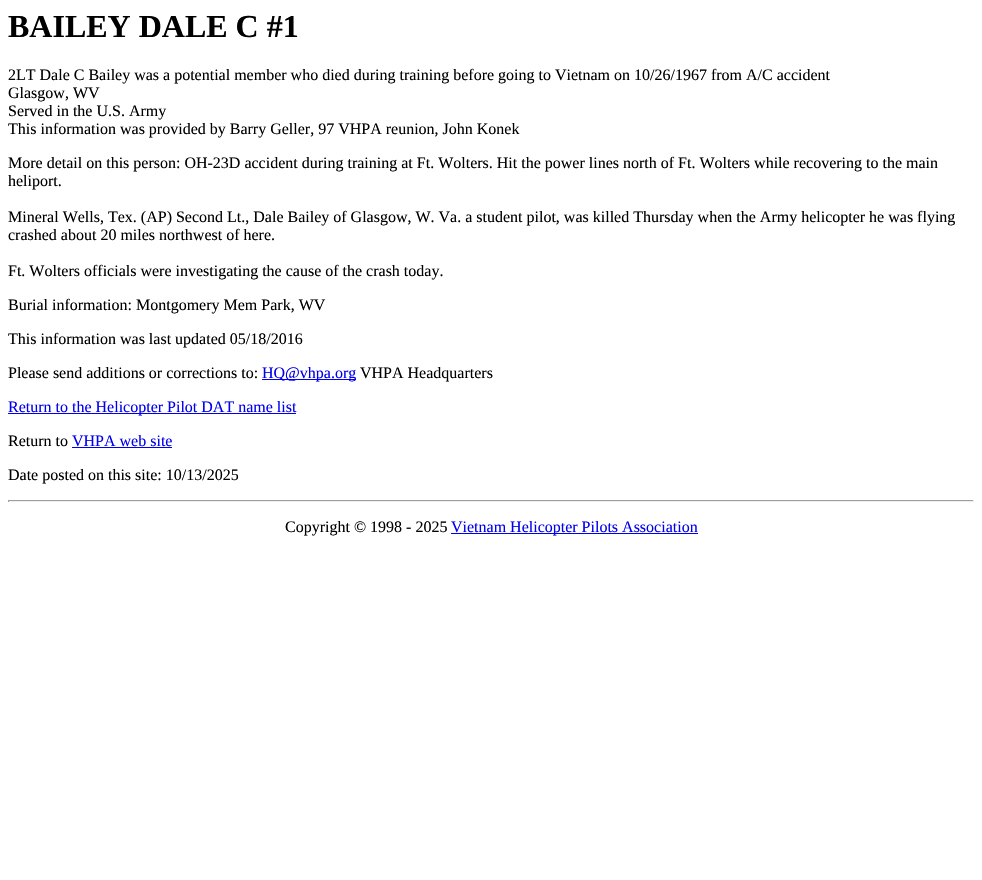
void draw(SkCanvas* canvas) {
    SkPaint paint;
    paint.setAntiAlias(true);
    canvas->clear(0xFFFFFFFF);
    SkFont font1(fontMgr->matchFamilyStyle("Liberation Serif", SkFontStyle::Bold()), 32);
    font1.setSubpixel(true);
    paint.setColor(0xFF000000);
    canvas->drawString("BAILEY DALE C #1", 8, 37, font1, paint);
    SkFont font2(fontMgr->matchFamilyStyle("Liberation Serif", SkFontStyle::Normal()), 16);
    font2.setSubpixel(true);
    canvas->drawString("2LT Dale C Bailey was a potential member who died during training before going to Vietnam on 10/26/1967 from A/C accident", 8, 80, font2, paint);
    canvas->drawString("Glasgow, WV", 8, 98, font2, paint);
    canvas->drawString("Served in the U.S. Army", 8, 116, font2, paint);
    canvas->drawString("This information was provided by Barry Geller, 97 VHPA reunion, John Konek", 8, 134, font2, paint);
    canvas->drawString("More detail on this person: OH-23D accident during training at Ft. Wolters. Hit the power lines north of Ft. Wolters while recovering to the main", 8, 168, font2, paint);
    canvas->drawString("heliport.", 8, 186, font2, paint);
    canvas->drawString("Mineral Wells, Tex. (AP) Second Lt., Dale Bailey of Glasgow, W. Va. a student pilot, was killed Thursday when the Army helicopter he was flying", 8, 222, font2, paint);
    canvas->drawString("crashed about 20 miles northwest of here.", 8, 240, font2, paint);
    canvas->drawString("Ft. Wolters officials were investigating the cause of the crash today.", 8, 276, font2, paint);
    canvas->drawString("Burial information: Montgomery Mem Park, WV", 8, 310, font2, paint);
    canvas->drawString("This information was last updated 05/18/2016", 8, 344, font2, paint);
    canvas->drawString("Please send additions or corrections to:", 8, 378, font2, paint);
    paint.setColor(0xFF0000EE);
    canvas->drawRect(SkRect::MakeXYWH(262, 379, 94, 1), paint);
    canvas->drawString("HQ@vhpa.org", 262, 378, font2, paint);
    paint.setColor(0xFF000000);
    canvas->drawString("VHPA Headquarters", 360, 378, font2, paint);
    paint.setColor(0xFF0000EE);
    canvas->drawRect(SkRect::MakeXYWH(8, 413, 288, 1), paint);
    canvas->drawString("Return to the Helicopter Pilot DAT name list", 8, 412, font2, paint);
    paint.setColor(0xFF000000);
    canvas->drawString("Return to", 8, 446, font2, paint);
    paint.setColor(0xFF0000EE);
    canvas->drawString("VHPA web site", 72, 446, font2, paint);
    canvas->drawRect(SkRect::MakeXYWH(72, 447, 100, 1), paint);
    paint.setColor(0xFF000000);
    canvas->drawString("Date posted on this site: 10/13/2025", 8, 480, font2, paint);
    paint.setColor(0xFF9F9F9F);
    canvas->drawRect(SkRect::MakeXYWH(8, 500, 966, 1), paint);
    paint.setColor(0xFFEEEEEE);
    canvas->drawRect(SkRect::MakeXYWH(973, 500, 1, 2), paint);
    canvas->drawRect(SkRect::MakeXYWH(8, 501, 966, 1), paint);
    paint.setColor(0xFF9F9F9F);
    canvas->drawRect(SkRect::MakeXYWH(8, 500, 1, 2), paint);
    paint.setColor(0xFF000000);
    canvas->drawString("Copyright © 1998 - 2025", 285, 532, font2, paint);
    paint.setColor(0xFF0000EE);
    canvas->drawRect(SkRect::MakeXYWH(451, 533, 247, 1), paint);
    canvas->drawString("Vietnam Helicopter Pilots Association", 451, 532, font2, paint);
}
